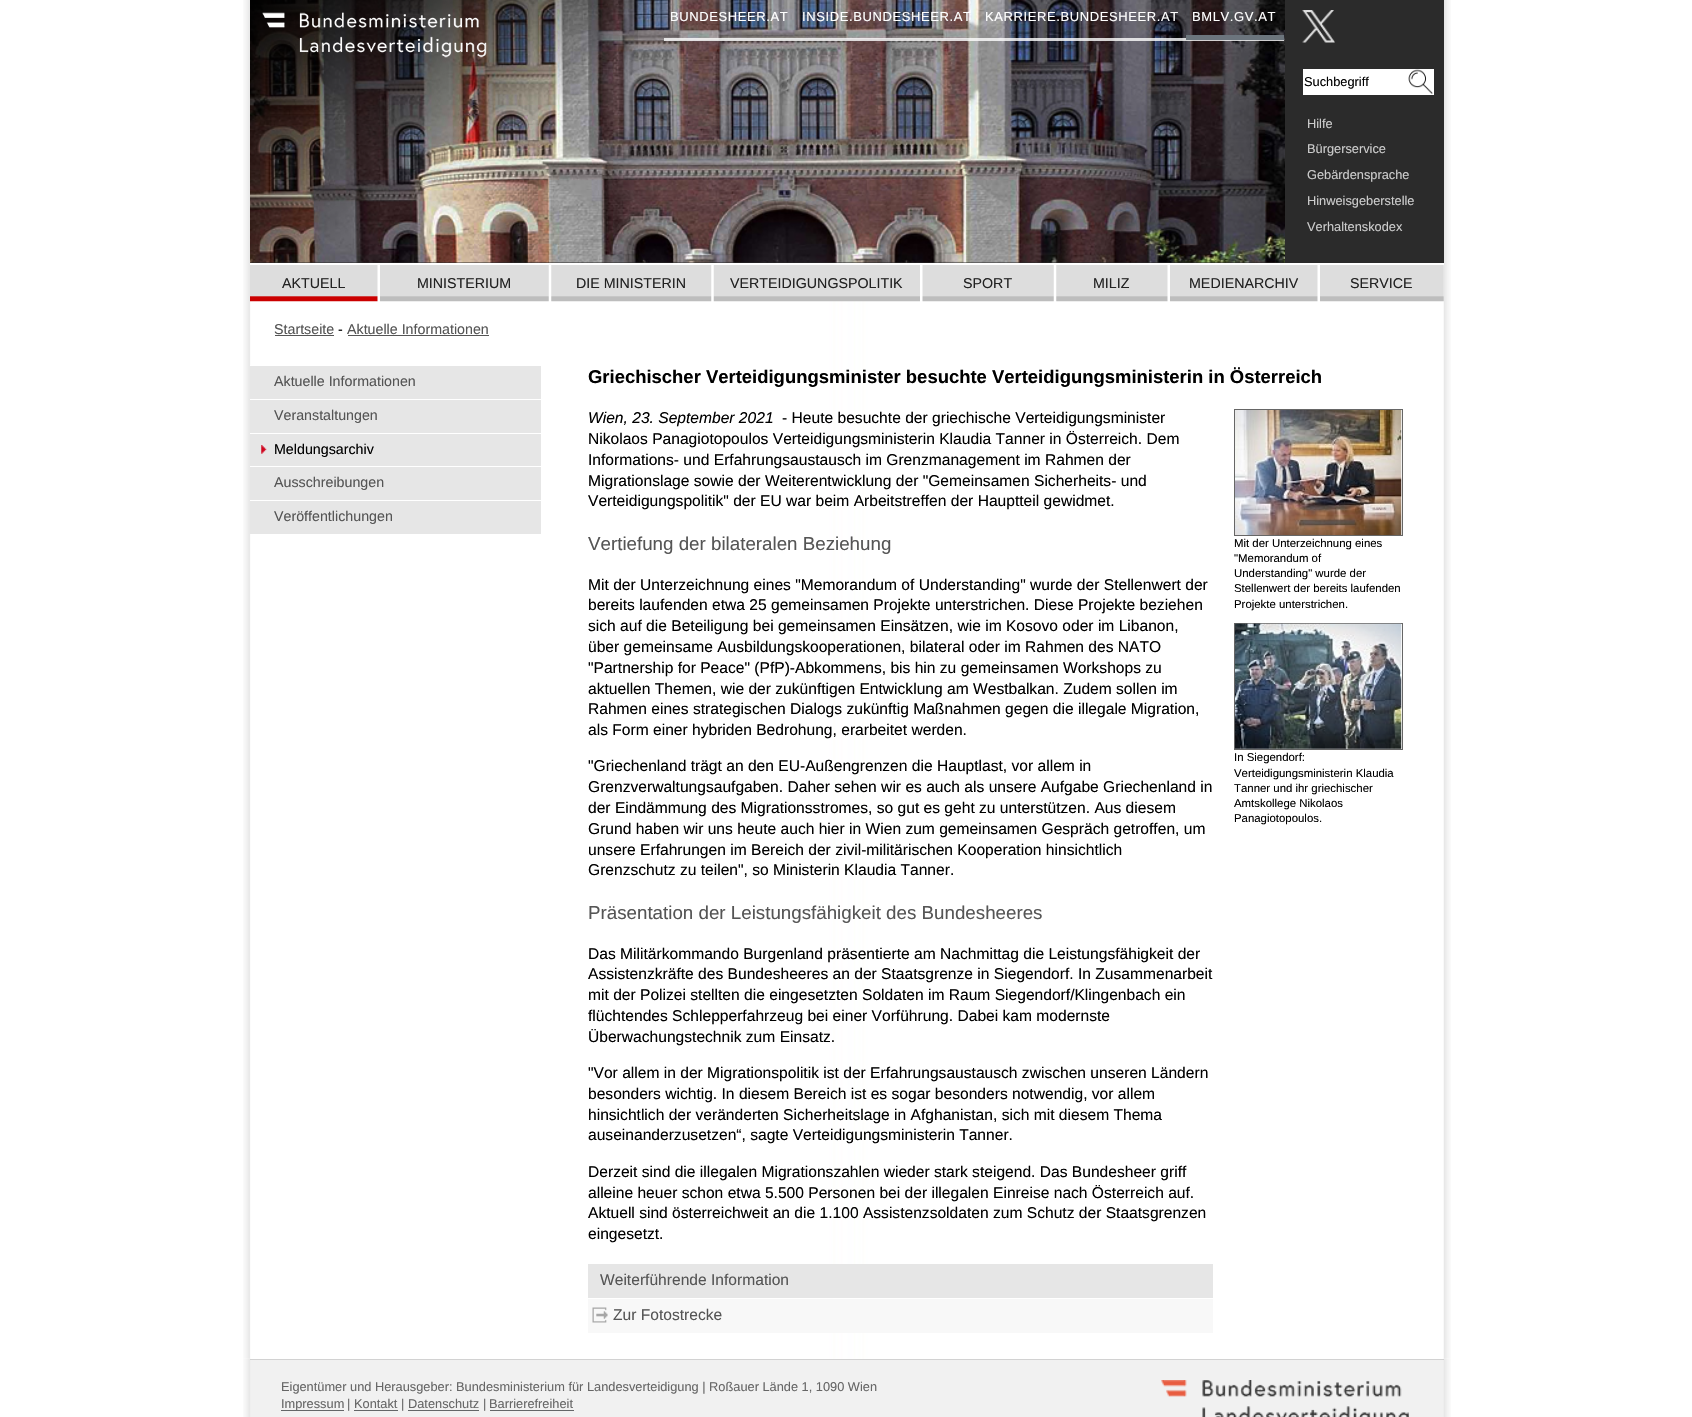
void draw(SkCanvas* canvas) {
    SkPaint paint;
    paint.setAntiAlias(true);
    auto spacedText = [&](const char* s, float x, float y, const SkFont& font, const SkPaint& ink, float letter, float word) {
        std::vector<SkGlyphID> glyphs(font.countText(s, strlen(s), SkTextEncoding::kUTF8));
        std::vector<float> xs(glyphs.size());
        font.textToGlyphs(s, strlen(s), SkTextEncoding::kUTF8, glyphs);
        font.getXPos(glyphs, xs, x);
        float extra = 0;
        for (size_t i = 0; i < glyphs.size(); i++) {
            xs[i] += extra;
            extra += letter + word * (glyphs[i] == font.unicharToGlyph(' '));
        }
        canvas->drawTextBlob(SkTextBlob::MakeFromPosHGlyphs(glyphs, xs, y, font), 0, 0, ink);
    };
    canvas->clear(0xFFFFFFFF);
    canvas->drawImageRect(SkImages::DeferredFromEncodedData(SkData::MakeFromFileName("img18.png")), SkRect::MakeXYWH(243, 1358, 1208, 59), SkSamplingOptions());
    canvas->drawImageRect(SkImages::DeferredFromEncodedData(SkData::MakeFromFileName("img1.png")), SkRect::MakeXYWH(243, 0, 1208, 1359), SkSamplingOptions());
    paint.setColor(0xFF2B2B2B);
    canvas->drawRect(SkRect::MakeXYWH(250, 0, 1194, 263), paint);
    canvas->drawImageRect(SkImages::DeferredFromEncodedData(SkData::MakeFromFileName("img4.png")), SkRect::MakeXYWH(250, 0, 1035, 263), SkSamplingOptions());
    {
        const SkColor colors[] = {0xFF000000, 0x00000000};
        const float stops[] = {0, 0.6f};
        const SkPoint ends[] = {{338, -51}, {549, 314}};
        paint.setShader(SkGradientShader::MakeLinear(ends, colors, stops, 2, SkTileMode::kClamp));
        paint.setAlpha(255);
    }
    canvas->drawRect(SkRect::MakeXYWH(250, 0, 388, 263), paint);
    canvas->drawImageRect(SkImages::DeferredFromEncodedData(SkData::MakeFromFileName("img2.png")), SkRect::MakeXYWH(262, 12, 225, 46), SkSamplingOptions());
    canvas->drawImageRect(SkImages::DeferredFromEncodedData(SkData::MakeFromFileName("img3.png")), SkRect::MakeXYWH(1302, 10, 33, 33), SkSamplingOptions());
    paint.setShader(nullptr);
    paint.setColor(0xCCFFFFFF);
    canvas->drawRect(SkRect::MakeXYWH(664, 38, 620, 3), paint);
    SkFont font1(fontMgr->matchFamilyStyle("Liberation Sans", SkFontStyle::Normal()), 13);
    font1.setSubpixel(true);
    paint.setColor(0xFFFFFFFF);
    spacedText("BUNDESHEER.AT", 670, 21, font1, paint, 0.6f, 0);
    spacedText("INSIDE.BUNDESHEER.AT", 802, 21, font1, paint, 0.6f, 0);
    spacedText("KARRIERE.BUNDESHEER.AT", 985, 21, font1, paint, 0.6f, 0);
    paint.setColor(0xFF6C757D);
    canvas->drawRect(SkRect::MakeXYWH(1186, 35, 98, 5), paint);
    paint.setColor(0xFFFFFFFF);
    spacedText("BMLV.GV.AT", 1192, 21, font1, paint, 0.6f, 0);
    canvas->drawRect(SkRect::MakeXYWH(250, 263, 1194, 3), paint);
    canvas->drawRect(SkRect::MakeXYWH(1303, 69, 131, 26), paint);
    SkFont font2(fontMgr->matchFamilyStyle("Liberation Sans", SkFontStyle::Normal()), 12.8f);
    font2.setSubpixel(true);
    paint.setColor(0xFF000000);
    canvas->drawString("Suchbegriff", 1304, 86, font2, paint);
    canvas->drawImageRect(SkImages::DeferredFromEncodedData(SkData::MakeFromFileName("img5.png")), SkRect::MakeXYWH(1408, 69, 25, 26), SkSamplingOptions());
    paint.setColor(0xFFCCCCCC);
    canvas->drawString("Hilfe", 1307, 128, font2, paint);
    canvas->drawString("Bürgerservice", 1307, 153, font2, paint);
    canvas->drawString("Gebärdensprache", 1307, 179, font2, paint);
    canvas->drawString("Hinweisgeberstelle", 1307, 205, font2, paint);
    canvas->drawString("Verhaltenskodex", 1307, 231, font2, paint);
    canvas->drawImageRect(SkImages::DeferredFromEncodedData(SkData::MakeFromFileName("img6.png")), SkRect::MakeXYWH(250, 265, 128, 37), SkSamplingOptions());
    SkFont font3(fontMgr->matchFamilyStyle("Liberation Sans", SkFontStyle::Normal()), 14.25f);
    font3.setSubpixel(true);
    paint.setColor(0xFF222222);
    canvas->drawString("AKTUELL", 282, 288, font3, paint);
    canvas->drawImageRect(SkImages::DeferredFromEncodedData(SkData::MakeFromFileName("img7.png")), SkRect::MakeXYWH(380, 265, 169, 37), SkSamplingOptions());
    canvas->drawString("MINISTERIUM", 417, 288, font3, paint);
    canvas->drawImageRect(SkImages::DeferredFromEncodedData(SkData::MakeFromFileName("img8.png")), SkRect::MakeXYWH(551, 265, 161, 37), SkSamplingOptions());
    canvas->drawString("DIE MINISTERIN", 576, 288, font3, paint);
    canvas->drawImageRect(SkImages::DeferredFromEncodedData(SkData::MakeFromFileName("img9.png")), SkRect::MakeXYWH(713, 265, 207, 37), SkSamplingOptions());
    canvas->drawString("VERTEIDIGUNGSPOLITIK", 730, 288, font3, paint);
    canvas->drawImageRect(SkImages::DeferredFromEncodedData(SkData::MakeFromFileName("img10.png")), SkRect::MakeXYWH(922, 265, 132, 37), SkSamplingOptions());
    canvas->drawString("SPORT", 963, 288, font3, paint);
    canvas->drawImageRect(SkImages::DeferredFromEncodedData(SkData::MakeFromFileName("img11.png")), SkRect::MakeXYWH(1056, 265, 112, 37), SkSamplingOptions());
    canvas->drawString("MILIZ", 1093, 288, font3, paint);
    canvas->drawImageRect(SkImages::DeferredFromEncodedData(SkData::MakeFromFileName("img12.png")), SkRect::MakeXYWH(1170, 265, 148, 37), SkSamplingOptions());
    canvas->drawString("MEDIENARCHIV", 1189, 288, font3, paint);
    canvas->drawImageRect(SkImages::DeferredFromEncodedData(SkData::MakeFromFileName("img13.png")), SkRect::MakeXYWH(1320, 265, 124, 37), SkSamplingOptions());
    canvas->drawString("SERVICE", 1350, 288, font3, paint);
    paint.setColor(0xFF555555);
    canvas->drawString("Startseite", 274, 334, font3, paint);
    canvas->drawRect(SkRect::MakeXYWH(275, 335, 59, 1), paint);
    paint.setColor(0xFF000000);
    canvas->drawString("-", 338, 334, font3, paint);
    paint.setColor(0xFF555555);
    canvas->drawString("Aktuelle Informationen", 347, 334, font3, paint);
    canvas->drawRect(SkRect::MakeXYWH(348, 335, 141, 1), paint);
    SkFont font4(fontMgr->matchFamilyStyle("Liberation Sans", SkFontStyle::Bold()), 18.45f);
    font4.setSubpixel(true);
    paint.setColor(0xFF000000);
    canvas->drawString("Griechischer Verteidigungsminister besuchte Verteidigungsministerin in Österreich", 588, 383, font4, paint);
    SkFont font5(fontMgr->matchFamilyStyle("Liberation Sans", SkFontStyle::Italic()), 15.6f);
    font5.setSubpixel(true);
    canvas->drawString("Wien, 23. September 2021", 588, 423, font5, paint);
    SkFont font6(fontMgr->matchFamilyStyle("Liberation Sans", SkFontStyle::Normal()), 15.6f);
    font6.setSubpixel(true);
    canvas->drawString("- Heute besuchte der griechische Verteidigungsminister", 782, 423, font6, paint);
    canvas->drawString("Nikolaos Panagiotopoulos Verteidigungsministerin Klaudia Tanner in Österreich. Dem", 588, 444, font6, paint);
    canvas->drawString("Informations- und Erfahrungsaustausch im Grenzmanagement im Rahmen der", 588, 465, font6, paint);
    canvas->drawString("Migrationslage sowie der Weiterentwicklung der \"Gemeinsamen Sicherheits- und", 588, 486, font6, paint);
    canvas->drawString("Verteidigungspolitik\" der EU war beim Arbeitstreffen der Hauptteil gewidmet.", 588, 506, font6, paint);
    SkFont font7(fontMgr->matchFamilyStyle("Liberation Sans", SkFontStyle::Normal()), 18.75f);
    font7.setSubpixel(true);
    paint.setColor(0xFF555555);
    canvas->drawString("Vertiefung der bilateralen Beziehung", 588, 550, font7, paint);
    paint.setColor(0xFF000000);
    canvas->drawString("Mit der Unterzeichnung eines \"Memorandum of Understanding\" wurde der Stellenwert der", 588, 590, font6, paint);
    canvas->drawString("bereits laufenden etwa 25 gemeinsamen Projekte unterstrichen. Diese Projekte beziehen", 588, 610, font6, paint);
    canvas->drawString("sich auf die Beteiligung bei gemeinsamen Einsätzen, wie im Kosovo oder im Libanon,", 588, 631, font6, paint);
    canvas->drawString("über gemeinsame Ausbildungskooperationen, bilateral oder im Rahmen des NATO", 588, 652, font6, paint);
    canvas->drawString("\"Partnership for Peace\" (PfP)-Abkommens, bis hin zu gemeinsamen Workshops zu", 588, 673, font6, paint);
    canvas->drawString("aktuellen Themen, wie der zukünftigen Entwicklung am Westbalkan. Zudem sollen im", 588, 694, font6, paint);
    canvas->drawString("Rahmen eines strategischen Dialogs zukünftig Maßnahmen gegen die illegale Migration,", 588, 714, font6, paint);
    canvas->drawString("als Form einer hybriden Bedrohung, erarbeitet werden.", 588, 735, font6, paint);
    canvas->drawString("\"Griechenland trägt an den EU-Außengrenzen die Hauptlast, vor allem in", 588, 771, font6, paint);
    canvas->drawString("Grenzverwaltungsaufgaben. Daher sehen wir es auch als unsere Aufgabe Griechenland in", 588, 792, font6, paint);
    canvas->drawString("der Eindämmung des Migrationsstromes, so gut es geht zu unterstützen. Aus diesem", 588, 813, font6, paint);
    canvas->drawString("Grund haben wir uns heute auch hier in Wien zum gemeinsamen Gespräch getroffen, um", 588, 834, font6, paint);
    canvas->drawString("unsere Erfahrungen im Bereich der zivil-militärischen Kooperation hinsichtlich", 588, 855, font6, paint);
    canvas->drawString("Grenzschutz zu teilen\", so Ministerin Klaudia Tanner.", 588, 875, font6, paint);
    paint.setColor(0xFF555555);
    canvas->drawString("Präsentation der Leistungsfähigkeit des Bundesheeres", 588, 919, font7, paint);
    paint.setColor(0xFF000000);
    canvas->drawString("Das Militärkommando Burgenland präsentierte am Nachmittag die Leistungsfähigkeit der", 588, 959, font6, paint);
    canvas->drawString("Assistenzkräfte des Bundesheeres an der Staatsgrenze in Siegendorf. In Zusammenarbeit", 588, 979, font6, paint);
    canvas->drawString("mit der Polizei stellten die eingesetzten Soldaten im Raum Siegendorf/Klingenbach ein", 588, 1000, font6, paint);
    canvas->drawString("flüchtendes Schlepperfahrzeug bei einer Vorführung. Dabei kam modernste", 588, 1021, font6, paint);
    canvas->drawString("Überwachungstechnik zum Einsatz.", 588, 1042, font6, paint);
    canvas->drawString("\"Vor allem in der Migrationspolitik ist der Erfahrungsaustausch zwischen unseren Ländern", 588, 1078, font6, paint);
    canvas->drawString("besonders wichtig. In diesem Bereich ist es sogar besonders notwendig, vor allem", 588, 1099, font6, paint);
    canvas->drawString("hinsichtlich der veränderten Sicherheitslage in Afghanistan, sich mit diesem Thema", 588, 1120, font6, paint);
    canvas->drawString("auseinanderzusetzen“, sagte Verteidigungsministerin Tanner.", 588, 1140, font6, paint);
    canvas->drawString("Derzeit sind die illegalen Migrationszahlen wieder stark steigend. Das Bundesheer griff", 588, 1177, font6, paint);
    canvas->drawString("alleine heuer schon etwa 5.500 Personen bei der illegalen Einreise nach Österreich auf.", 588, 1198, font6, paint);
    canvas->drawString("Aktuell sind österreichweit an die 1.100 Assistenzsoldaten zum Schutz der Staatsgrenzen", 588, 1218, font6, paint);
    canvas->drawString("eingesetzt.", 588, 1239, font6, paint);
    paint.setColor(0xFFE6E6E6);
    canvas->drawRect(SkRect::MakeXYWH(588, 1264, 625, 34), paint);
    paint.setColor(0xFF555555);
    canvas->drawString("Weiterführende Information", 600, 1285, font6, paint);
    paint.setColor(0xFFF8F8F8);
    canvas->drawRect(SkRect::MakeXYWH(588, 1299, 625, 34), paint);
    paint.setColor(0xFFFFFFFF);
    canvas->drawRect(SkRect::MakeXYWH(833, 1298, 31, 1), paint);
    canvas->drawImageRect(SkImages::DeferredFromEncodedData(SkData::MakeFromFileName("img14.png")), SkRect::MakeXYWH(592, 1307, 16, 16), SkSamplingOptions());
    paint.setColor(0xFF555555);
    canvas->drawString("Zur Fotostrecke", 613, 1320, font6, paint);
    paint.setStyle(SkPaint::kStroke_Style);
    paint.setStrokeWidth(1);
    paint.setColor(0xFF666666);
    canvas->drawRect(SkRect::MakeXYWH(1234.5f, 409.5f, 168, 126), paint);
    canvas->drawImageRect(SkImages::DeferredFromEncodedData(SkData::MakeFromFileName("img15.png")), SkRect::MakeXYWH(1235, 410, 167, 125), SkSamplingOptions());
    SkFont font8(fontMgr->matchFamilyStyle("Liberation Sans", SkFontStyle::Normal()), 11.4f);
    font8.setSubpixel(true);
    paint.setStyle(SkPaint::kFill_Style);
    paint.setColor(0xFF000000);
    canvas->drawString("Mit der Unterzeichnung eines", 1234, 547, font8, paint);
    canvas->drawString("\"Memorandum of", 1234, 562, font8, paint);
    canvas->drawString("Understanding\" wurde der", 1234, 577, font8, paint);
    canvas->drawString("Stellenwert der bereits laufenden", 1234, 592, font8, paint);
    canvas->drawString("Projekte unterstrichen.", 1234, 608, font8, paint);
    paint.setStyle(SkPaint::kStroke_Style);
    paint.setColor(0xFF666666);
    canvas->drawRect(SkRect::MakeXYWH(1234.5f, 623.5f, 168, 126), paint);
    canvas->drawImageRect(SkImages::DeferredFromEncodedData(SkData::MakeFromFileName("img16.png")), SkRect::MakeXYWH(1235, 623, 167, 126), SkSamplingOptions());
    paint.setStyle(SkPaint::kFill_Style);
    paint.setColor(0xFF000000);
    canvas->drawString("In Siegendorf:", 1234, 761, font8, paint);
    canvas->drawString("Verteidigungsministerin Klaudia", 1234, 777, font8, paint);
    canvas->drawString("Tanner und ihr griechischer", 1234, 792, font8, paint);
    canvas->drawString("Amtskollege Nikolaos", 1234, 807, font8, paint);
    canvas->drawString("Panagiotopoulos.", 1234, 822, font8, paint);
    paint.setColor(0xFFE6E6E6);
    canvas->drawRect(SkRect::MakeXYWH(250, 366, 291, 33), paint);
    paint.setColor(0xFFFFFFFF);
    canvas->drawRect(SkRect::MakeXYWH(250, 365, 1, 1), paint);
    paint.setColor(0xFF555555);
    canvas->drawString("Aktuelle Informationen", 274, 386, font3, paint);
    paint.setColor(0xFFE6E6E6);
    canvas->drawRect(SkRect::MakeXYWH(250, 400, 291, 33), paint);
    paint.setColor(0xFFFFFFFF);
    canvas->drawRect(SkRect::MakeXYWH(250, 399, 1, 1), paint);
    paint.setColor(0xFF555555);
    canvas->drawString("Veranstaltungen", 274, 420, font3, paint);
    paint.setColor(0xFFE6E6E6);
    canvas->drawRect(SkRect::MakeXYWH(250, 434, 291, 32), paint);
    paint.setColor(0xFFFFFFFF);
    canvas->drawRect(SkRect::MakeXYWH(250, 433, 1, 1), paint);
    canvas->drawImageRect(SkImages::DeferredFromEncodedData(SkData::MakeFromFileName("img17.png")), SkRect::MakeXYWH(261, 445, 6, 9), SkSamplingOptions());
    paint.setColor(0xFF000000);
    canvas->drawString("Meldungsarchiv", 274, 454, font3, paint);
    paint.setColor(0xFFE6E6E6);
    canvas->drawRect(SkRect::MakeXYWH(250, 467, 291, 33), paint);
    paint.setColor(0xFFFFFFFF);
    canvas->drawRect(SkRect::MakeXYWH(250, 466, 1, 1), paint);
    paint.setColor(0xFF555555);
    canvas->drawString("Ausschreibungen", 274, 487, font3, paint);
    paint.setColor(0xFFE6E6E6);
    canvas->drawRect(SkRect::MakeXYWH(250, 501, 291, 33), paint);
    paint.setColor(0xFFFFFFFF);
    canvas->drawRect(SkRect::MakeXYWH(250, 500, 1, 1), paint);
    paint.setColor(0xFF555555);
    canvas->drawString("Veröffentlichungen", 274, 521, font3, paint);
    paint.setColor(0xFFD2D2D2);
    canvas->drawRect(SkRect::MakeXYWH(250, 1359, 1194, 1), paint);
    paint.setColor(0xFF666666);
    canvas->drawString("Eigentümer und Herausgeber: Bundesministerium für Landesverteidigung | Roßauer Lände 1, 1090 Wien", 281, 1391, font2, paint);
    paint.setColor(0xFF646668);
    canvas->drawRect(SkRect::MakeXYWH(281, 1410, 63, 1), paint);
    paint.setColor(0xFF666666);
    canvas->drawString("Impressum", 281, 1408, font2, paint);
    canvas->drawString("|", 347, 1408, font2, paint);
    canvas->drawString("Kontakt", 354, 1408, font2, paint);
    paint.setColor(0xFF646668);
    canvas->drawRect(SkRect::MakeXYWH(354, 1410, 44, 1), paint);
    paint.setColor(0xFF666666);
    canvas->drawString("|", 401, 1408, font2, paint);
    canvas->drawString("Datenschutz", 408, 1408, font2, paint);
    paint.setColor(0xFF646668);
    canvas->drawRect(SkRect::MakeXYWH(408, 1410, 71, 1), paint);
    paint.setColor(0xFF666666);
    canvas->drawString("|", 483, 1408, font2, paint);
    canvas->drawString("Barrierefreiheit", 489, 1408, font2, paint);
    paint.setColor(0xFF646668);
    canvas->drawRect(SkRect::MakeXYWH(490, 1410, 84, 1), paint);
    canvas->drawImageRect(SkImages::DeferredFromEncodedData(SkData::MakeFromFileName("img19.png")), SkRect::MakeXYWH(1161, 1380, 248, 37), SkSamplingOptions());
}
